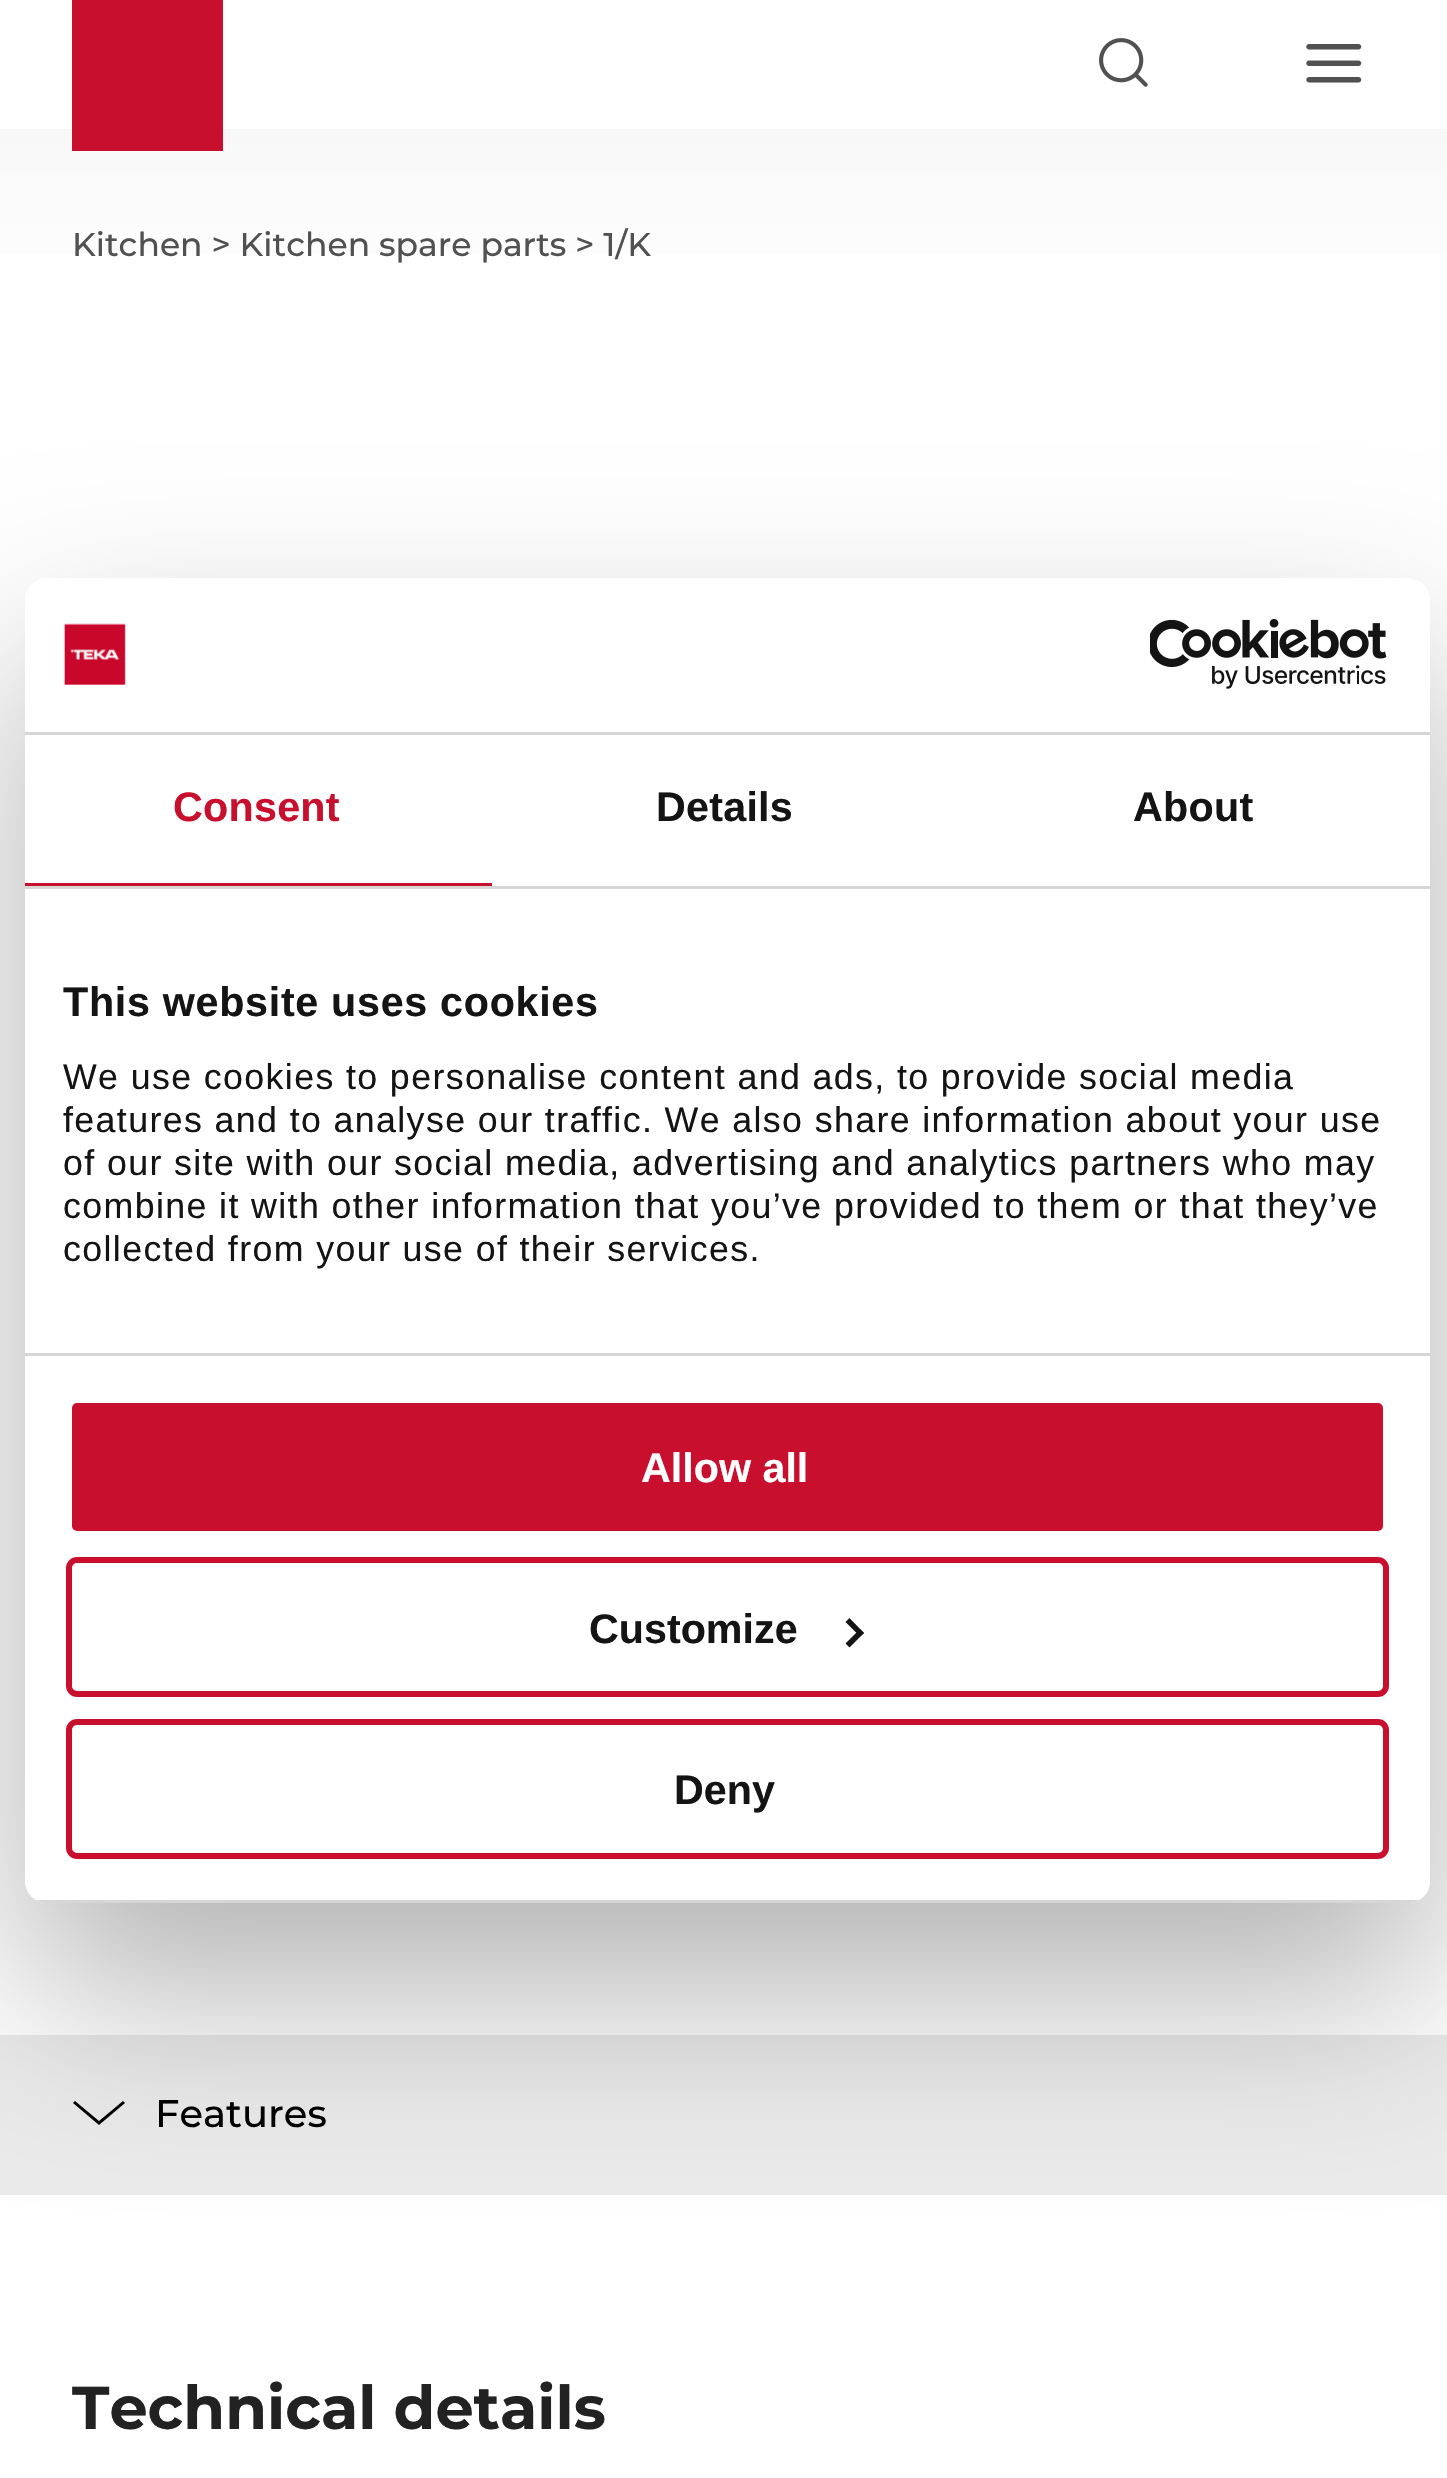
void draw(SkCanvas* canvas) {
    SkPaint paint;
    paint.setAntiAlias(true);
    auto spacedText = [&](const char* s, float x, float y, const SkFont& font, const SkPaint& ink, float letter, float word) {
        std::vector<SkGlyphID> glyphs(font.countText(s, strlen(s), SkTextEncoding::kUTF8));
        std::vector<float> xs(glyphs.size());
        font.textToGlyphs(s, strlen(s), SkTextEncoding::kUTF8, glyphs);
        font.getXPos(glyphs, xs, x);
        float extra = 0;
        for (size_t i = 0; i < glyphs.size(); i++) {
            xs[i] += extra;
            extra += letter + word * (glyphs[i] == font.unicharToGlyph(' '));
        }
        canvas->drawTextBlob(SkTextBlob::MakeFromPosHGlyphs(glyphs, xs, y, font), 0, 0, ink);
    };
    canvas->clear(0xFFFFFFFF);
    {
        const SkColor colors[] = {0xFFF8F8F8, 0xFFFFFFFF};
        const float stops[] = {0, 1};
        const SkPoint ends[] = {{725, 129}, {725, 322}};
        paint.setShader(SkGradientShader::MakeLinear(ends, colors, stops, 2, SkTileMode::kClamp));
        paint.setAlpha(255);
    }
    canvas->drawRect(SkRect::MakeXYWH(0, 129, 1447, 124), paint);
    paint.setShader(nullptr);
    paint.setColor(0xFFC8102E);
    canvas->drawRect(SkRect::MakeXYWH(72, 0, 151, 151), paint);
    canvas->drawImageRect(SkImages::DeferredFromEncodedData(SkData::MakeFromFileName("img1.png")), SkRect::MakeXYWH(1099, 38, 49, 49), SkSamplingOptions());
    canvas->drawImageRect(SkImages::DeferredFromEncodedData(SkData::MakeFromFileName("img2.png")), SkRect::MakeXYWH(1306, 44, 56, 39), SkSamplingOptions());
    SkFont font1(fontMgr->matchFamilyStyle("Montserrat", SkFontStyle(100, SkFontStyle::kNormal_Width, SkFontStyle::kUpright_Slant)), 33);
    font1.setSubpixel(true);
    paint.setColor(0xFF515151);
    canvas->drawString("Kitchen > Kitchen spare parts > 1/K", 72, 256, font1, paint);
    paint.setColor(0xFFEBEBEB);
    canvas->drawRect(SkRect::MakeXYWH(0, 2035, 1447, 160), paint);
    paint.setColor(0xFF000000);
    canvas->drawPath(SkPathBuilder().moveTo(99, 2125).lineTo(73, 2103).lineTo(75, 2101).lineTo(99, 2121).lineTo(123, 2101).lineTo(125, 2103).close().detach(), paint);
    SkFont font2(fontMgr->matchFamilyStyle("Montserrat", SkFontStyle(100, SkFontStyle::kNormal_Width, SkFontStyle::kUpright_Slant)), 38.5f);
    font2.setSubpixel(true);
    canvas->drawString("Features", 155, 2127, font2, paint);
    SkFont font3(fontMgr->matchFamilyStyle("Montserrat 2", SkFontStyle(100, SkFontStyle::kNormal_Width, SkFontStyle::kUpright_Slant)), 60.5f);
    font3.setSubpixel(true);
    paint.setColor(0xFF222222);
    canvas->drawString("Technical details", 72, 2429, font3, paint);
    canvas->save();
    canvas->clipPath(SkPathBuilder(SkPathFillType::kEvenOdd).moveTo(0, 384).lineTo(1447, 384).lineTo(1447, 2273).lineTo(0, 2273).close().moveTo(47, 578).lineTo(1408, 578).cubicTo(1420, 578, 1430, 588, 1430, 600).lineTo(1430, 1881).cubicTo(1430, 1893, 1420, 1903, 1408, 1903).lineTo(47, 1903).cubicTo(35, 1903, 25, 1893, 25, 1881).lineTo(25, 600).cubicTo(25, 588, 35, 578, 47, 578).close().detach(), true);
    paint.setColor(0x4D000000);
    paint.setMaskFilter(SkMaskFilter::MakeBlur(kNormal_SkBlurStyle, 93.5f));
    canvas->drawRoundRect(SkRect::MakeXYWH(25, 666, 1405, 1325), 22, 22, paint);
    paint.setMaskFilter(nullptr);
    canvas->restore();
    paint.setColor(0xFFFFFFFF);
    canvas->drawRoundRect(SkRect::MakeXYWH(25, 578, 1405, 1325), 22, 22, paint);
    paint.setColor(0xFFD6D6D6);
    canvas->drawRect(SkRect::MakeXYWH(25, 732, 1405, 3), paint);
    canvas->drawImageRect(SkImages::DeferredFromEncodedData(SkData::MakeFromFileName("img3.png")), SkRect::MakeXYWH(63, 623, 63, 62), SkSamplingOptions());
    canvas->drawImageRect(SkImages::DeferredFromEncodedData(SkData::MakeFromFileName("img4.png")), SkRect::MakeXYWH(1150, 619, 237, 70), SkSamplingOptions());
    canvas->drawRect(SkRect::MakeXYWH(25, 886, 1405, 3), paint);
    paint.setColor(0xFFC8102E);
    canvas->drawRect(SkRect::MakeXYWH(25, 883, 467, 3), paint);
    SkFont font4(fontMgr->matchFamilyStyle("Liberation Sans", SkFontStyle::Bold()), 41.25f);
    font4.setSubpixel(true);
    spacedText("Consent", 173, 821, font4, paint, 0.25f, 0);
    paint.setColor(0xFF141414);
    spacedText("Details", 656, 821, font4, paint, 0.25f, 0);
    spacedText("About", 1133, 821, font4, paint, 0.25f, 0);
    paint.setColor(0xFFD6D6D6);
    canvas->drawRect(SkRect::MakeXYWH(25, 1353, 1405, 3), paint);
    paint.setColor(0xFF141414);
    spacedText("This website uses cookies", 63, 1016, font4, paint, 0.7f, 0);
    SkFont font5(fontMgr->matchFamilyStyle("Liberation Sans", SkFontStyle::Normal()), 35.75f);
    font5.setSubpixel(true);
    spacedText("We use cookies to personalise content and ads, to provide social media", 63, 1089, font5, paint, 1.38f, 0);
    spacedText("features and to analyse our traffic. We also share information about your use", 63, 1132, font5, paint, 1.38f, 0);
    spacedText("of our site with our social media, advertising and analytics partners who may", 63, 1175, font5, paint, 1.38f, 0);
    spacedText("combine it with other information that you’ve provided to them or that they’ve", 63, 1218, font5, paint, 1.38f, 0);
    spacedText("collected from your use of their services.", 63, 1261, font5, paint, 1.38f, 0);
    canvas->save();
    canvas->clipPath(SkPathBuilder().moveTo(47, 578).lineTo(1408, 578).cubicTo(1420, 578, 1430, 588, 1430, 600).lineTo(1430, 1881).cubicTo(1430, 1893, 1420, 1903, 1408, 1903).lineTo(47, 1903).cubicTo(35, 1903, 25, 1893, 25, 1881).lineTo(25, 600).cubicTo(25, 588, 35, 578, 47, 578).close().detach(), true);
    paint.setColor(0xFFD6D6D6);
    canvas->drawRect(SkRect::MakeXYWH(36, 1900, 1383, 3), paint);
    canvas->restore();
    paint.setColor(0xFFC8102E);
    canvas->drawRoundRect(SkRect::MakeXYWH(69, 1400, 1317, 134), 8, 8, paint);
    paint.setStyle(SkPaint::kStroke_Style);
    paint.setStrokeWidth(6);
    paint.setColor(0xFFFFFFFF);
    canvas->drawRoundRect(SkRect::MakeXYWH(69, 1400, 1317, 134), 8, 8, paint);
    paint.setStyle(SkPaint::kFill_Style);
    canvas->drawString("Allow all", 641, 1482, font4, paint);
    paint.setStyle(SkPaint::kStroke_Style);
    paint.setColor(0xFFC8102E);
    canvas->drawRoundRect(SkRect::MakeXYWH(69, 1560, 1317, 134), 8, 8, paint);
    paint.setStyle(SkPaint::kFill_Style);
    paint.setColor(0xFF141414);
    canvas->drawString("Customize", 589, 1643, font4, paint);
    canvas->drawPath(SkPathBuilder().moveTo(849.5f, 1618).lineTo(864, 1633).lineTo(860, 1636.5f).lineTo(845.5f, 1622).close().detach(), paint);
    canvas->drawPath(SkPathBuilder().moveTo(860, 1629).lineTo(864, 1633).lineTo(849.5f, 1647.5f).lineTo(845.5f, 1643.5f).close().detach(), paint);
    paint.setStyle(SkPaint::kStroke_Style);
    paint.setColor(0xFFC8102E);
    canvas->drawRoundRect(SkRect::MakeXYWH(69, 1722, 1317, 134), 8, 8, paint);
    paint.setStyle(SkPaint::kFill_Style);
    paint.setColor(0xFF141414);
    canvas->drawString("Deny", 674, 1804, font4, paint);
}
